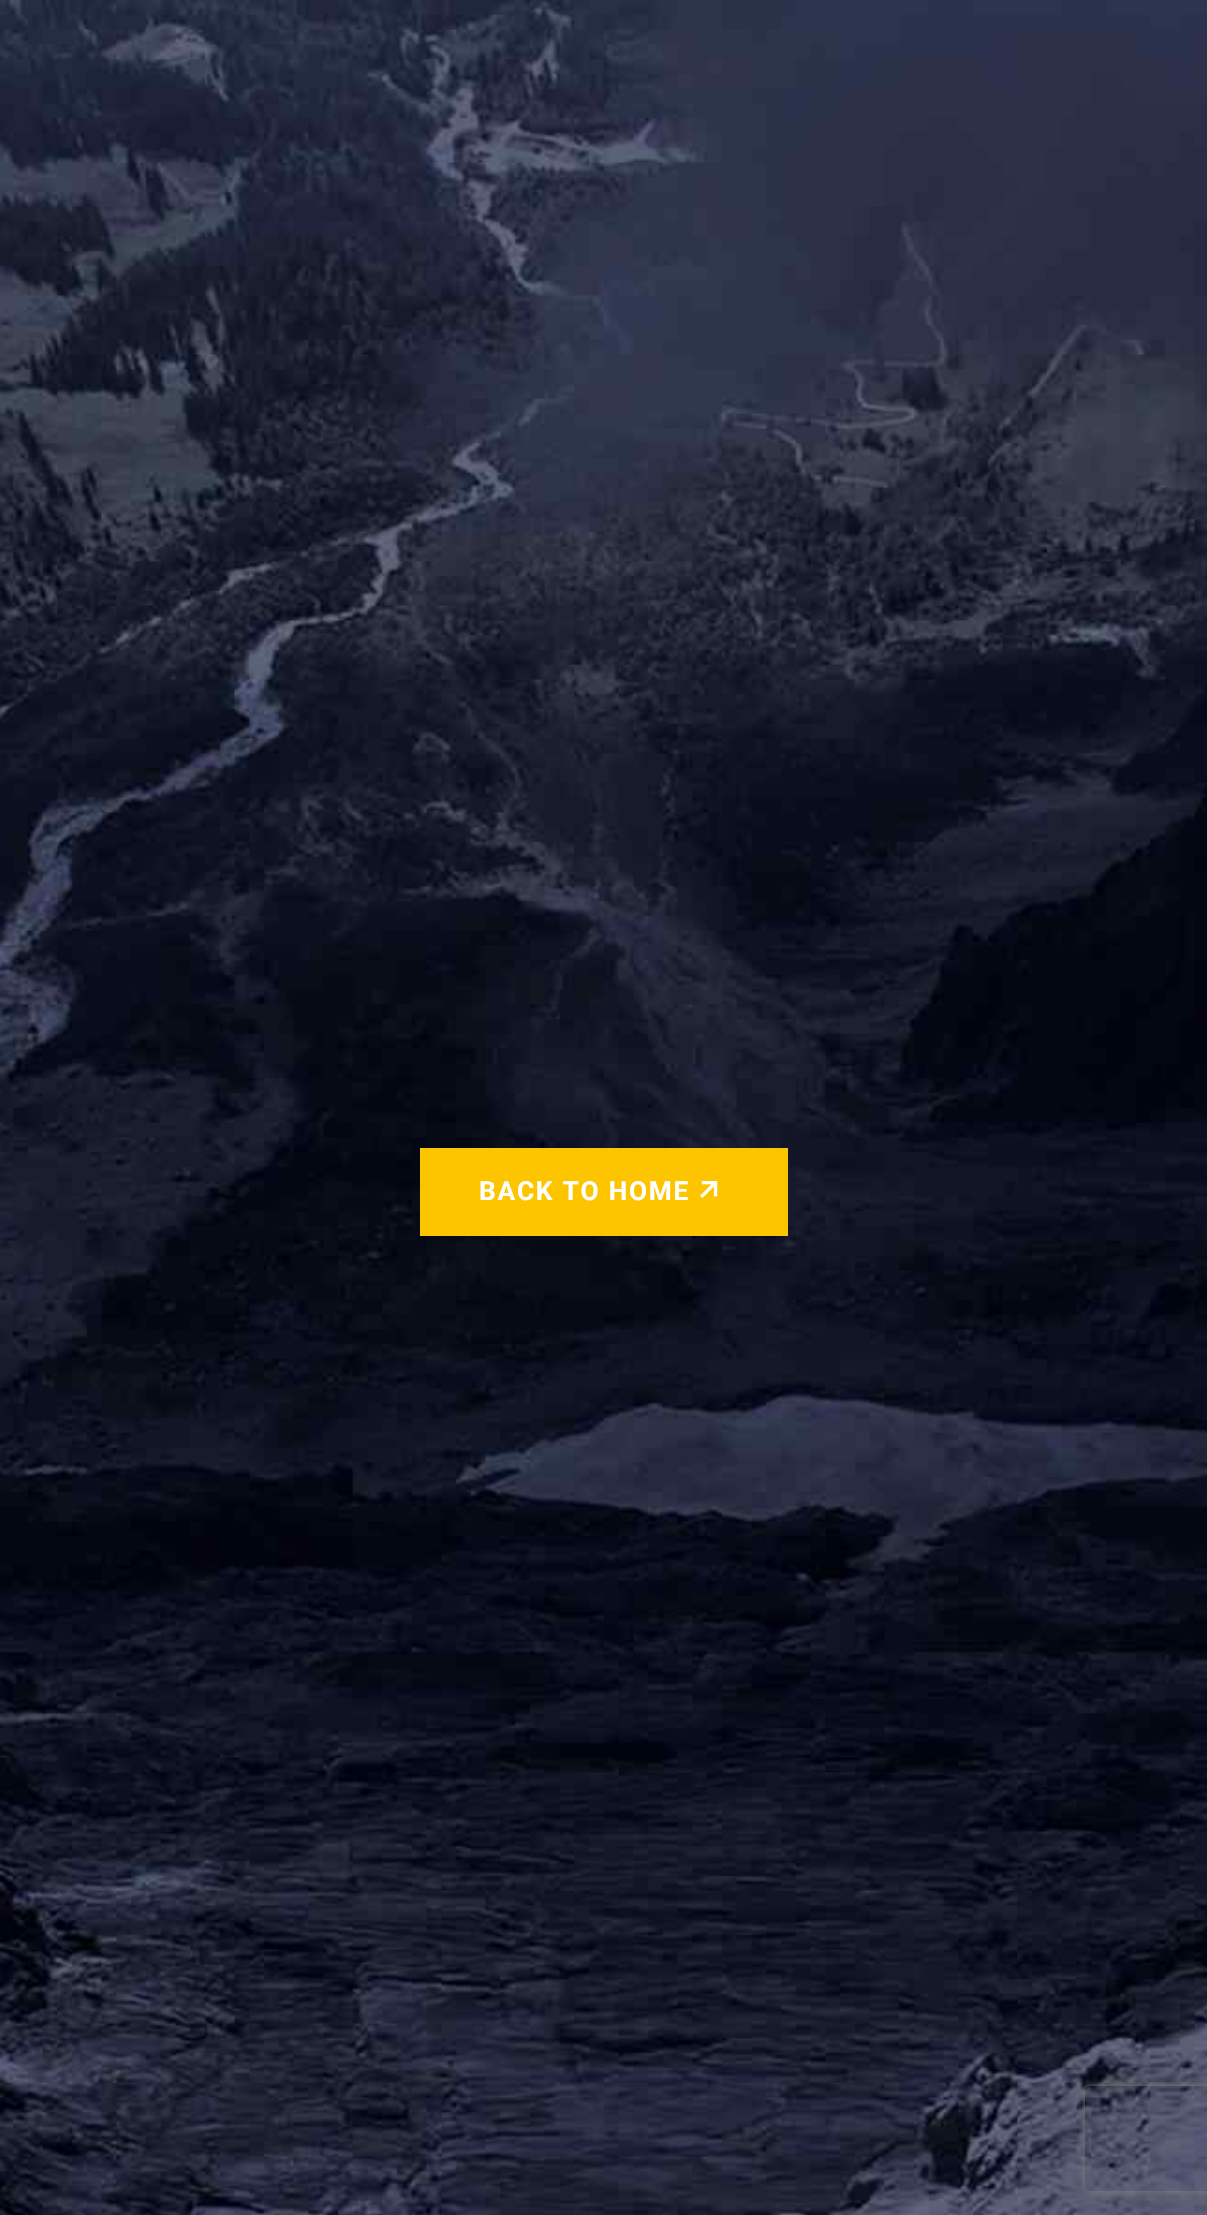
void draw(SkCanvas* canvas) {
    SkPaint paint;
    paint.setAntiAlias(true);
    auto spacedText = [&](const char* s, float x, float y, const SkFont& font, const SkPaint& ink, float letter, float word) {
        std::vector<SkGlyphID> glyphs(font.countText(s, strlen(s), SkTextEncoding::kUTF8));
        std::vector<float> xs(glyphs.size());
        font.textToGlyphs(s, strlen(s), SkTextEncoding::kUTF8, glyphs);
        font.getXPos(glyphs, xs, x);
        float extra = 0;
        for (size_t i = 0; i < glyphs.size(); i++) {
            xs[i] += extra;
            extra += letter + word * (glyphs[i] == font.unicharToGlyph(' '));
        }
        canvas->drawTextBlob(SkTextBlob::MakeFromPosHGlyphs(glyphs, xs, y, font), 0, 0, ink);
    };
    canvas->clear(0xFFFFFFFF);
    canvas->drawImageRect(SkImages::DeferredFromEncodedData(SkData::MakeFromFileName("img1.png")), SkRect::MakeXYWH(0, 0, 1207, 2215), SkSamplingOptions());
    paint.setColor(0xFFFDC500);
    canvas->drawRect(SkRect::MakeXYWH(420, 1148, 368, 88), paint);
    SkFont font1(fontMgr->matchFamilyStyle("Roboto", SkFontStyle::Bold()), 26.25f);
    font1.setSubpixel(true);
    paint.setColor(0xFFFFFFFF);
    spacedText("BACK TO HOME", 479, 1200, font1, paint, 1.75f, 0);
    canvas->drawImageRect(SkImages::DeferredFromEncodedData(SkData::MakeFromFileName("img2.png")), SkRect::MakeXYWH(700, 1181, 18, 17), SkSamplingOptions());
    canvas->save();
    canvas->clipPath(SkPathBuilder(SkPathFillType::kEvenOdd).moveTo(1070, 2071).lineTo(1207, 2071).lineTo(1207, 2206).lineTo(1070, 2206).close().moveTo(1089, 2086).lineTo(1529, 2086).cubicTo(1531, 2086, 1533, 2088, 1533, 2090).lineTo(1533, 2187).cubicTo(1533, 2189, 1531, 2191, 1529, 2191).lineTo(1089, 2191).cubicTo(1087, 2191, 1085, 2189, 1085, 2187).lineTo(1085, 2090).cubicTo(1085, 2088, 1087, 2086, 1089, 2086).close().detach(), true);
    paint.setColor(0xFF808080);
    paint.setMaskFilter(SkMaskFilter::MakeBlur(kNormal_SkBlurStyle, 4.5f));
    canvas->drawRoundRect(SkRect::MakeXYWH(1085, 2086, 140, 105), 4, 4, paint);
    paint.setMaskFilter(nullptr);
    canvas->restore();
}
